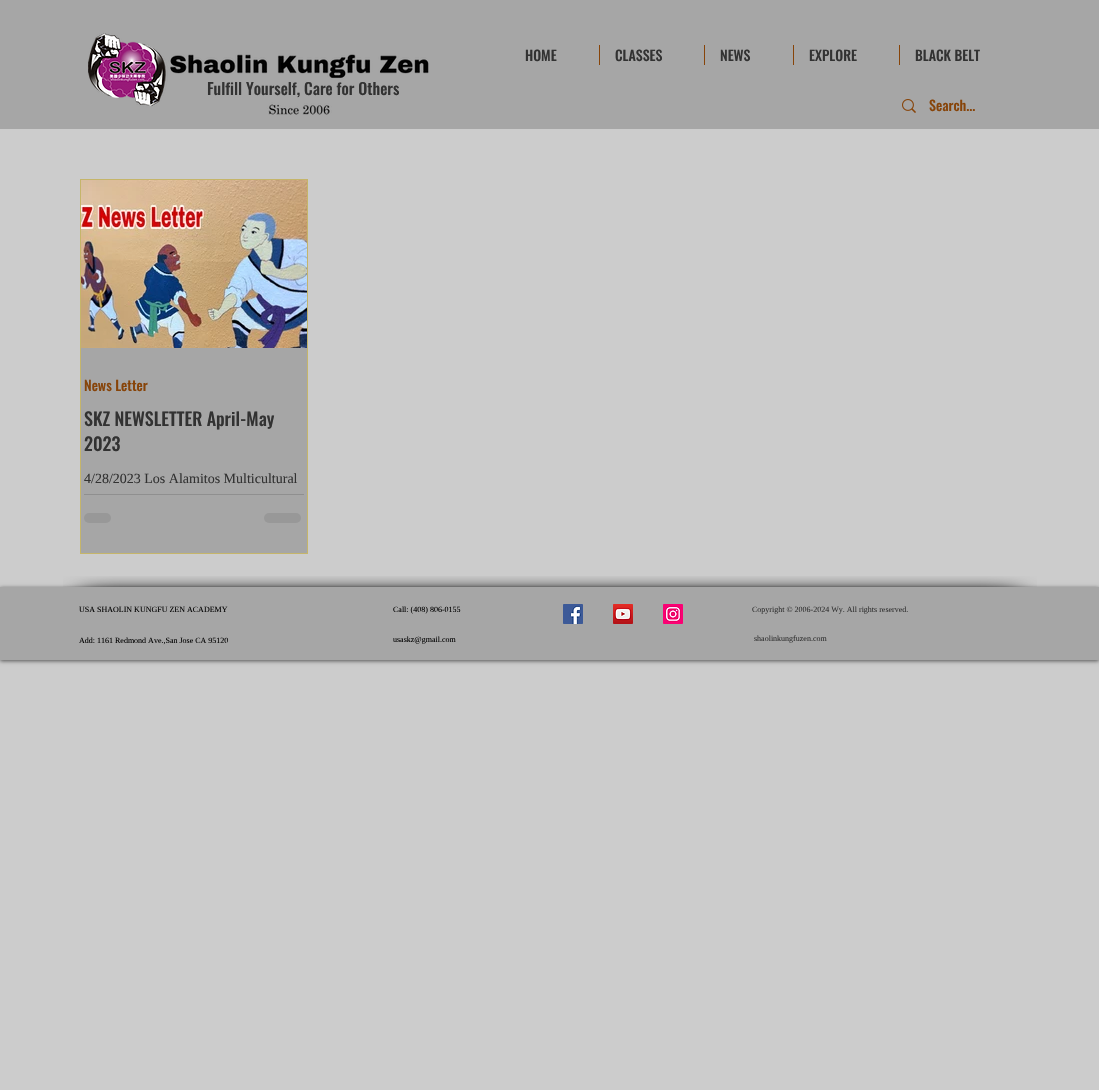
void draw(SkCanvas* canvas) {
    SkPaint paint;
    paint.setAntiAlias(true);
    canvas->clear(0xFFCCCCCC);
    paint.setColor(0xFFA6A6A6);
    canvas->drawRect(SkRect::MakeXYWH(0, 0, 1099, 129), paint);
    SkFont font1(fontMgr->matchFamilyStyle("Oswald", SkFontStyle(500, SkFontStyle::kNormal_Width, SkFontStyle::kUpright_Slant)), 16);
    font1.setSubpixel(true);
    paint.setColor(0xFF323232);
    canvas->drawString("Fulfill Yourself, Care for Others", 207, 95, font1, paint);
    canvas->drawImageRect(SkImages::DeferredFromEncodedData(SkData::MakeFromFileName("img1.png")), SkRect::MakeXYWH(88, 33, 341, 82), SkSamplingOptions());
    SkFont font2(fontMgr->matchFamilyStyle("Oswald", SkFontStyle(500, SkFontStyle::kNormal_Width, SkFontStyle::kUpright_Slant)), 14);
    font2.setSubpixel(true);
    canvas->drawString("HOME", 525, 61, font2, paint);
    paint.setColor(0xFF874409);
    canvas->drawRect(SkRect::MakeXYWH(599, 45, 1, 20), paint);
    paint.setColor(0xFF323232);
    canvas->drawString("CLASSES", 615, 61, font2, paint);
    paint.setColor(0xFF874409);
    canvas->drawRect(SkRect::MakeXYWH(704, 45, 1, 20), paint);
    paint.setColor(0xFF323232);
    canvas->drawString("NEWS", 720, 61, font2, paint);
    paint.setColor(0xFF874409);
    canvas->drawRect(SkRect::MakeXYWH(793, 45, 1, 20), paint);
    paint.setColor(0xFF323232);
    canvas->drawString("EXPLORE", 809, 61, font2, paint);
    paint.setColor(0xFF874409);
    canvas->drawRect(SkRect::MakeXYWH(899, 45, 1, 20), paint);
    paint.setColor(0xFF323232);
    canvas->drawString("BLACK BELT", 915, 61, font2, paint);
    canvas->drawImageRect(SkImages::DeferredFromEncodedData(SkData::MakeFromFileName("img2.png")), SkRect::MakeXYWH(902, 99, 14, 14), SkSamplingOptions());
    paint.setColor(0xFF874409);
    canvas->drawString("Search...", 929, 111, font2, paint);
    paint.setStyle(SkPaint::kStroke_Style);
    paint.setStrokeWidth(1);
    paint.setColor(0xFFC5B56A);
    canvas->drawRect(SkRect::MakeXYWH(80.5f, 179.5f, 227, 374), paint);
    canvas->drawImageRect(SkImages::DeferredFromEncodedData(SkData::MakeFromFileName("img3.png")), SkRect::MakeXYWH(81, 180, 226, 168), SkSamplingOptions());
    paint.setStyle(SkPaint::kFill_Style);
    paint.setColor(0xFFA6A6A6);
    canvas->drawRect(SkRect::MakeXYWH(81, 348, 226, 205), paint);
    paint.setColor(0xFF874409);
    canvas->drawString("News Letter", 84, 391, font2, paint);
    SkFont font3(fontMgr->matchFamilyStyle("Oswald", SkFontStyle(500, SkFontStyle::kNormal_Width, SkFontStyle::kUpright_Slant)), 18);
    font3.setSubpixel(true);
    paint.setColor(0xFF323232);
    canvas->drawString("SKZ NEWSLETTER April-May", 84, 426, font3, paint);
    canvas->drawString("2023", 84, 451, font3, paint);
    SkFont font4(fontMgr->matchFamilyStyle("Liberation Serif", SkFontStyle::Normal()), 14);
    font4.setSubpixel(true);
    canvas->drawString("4/28/2023 Los Alamitos Multicultural", 84, 483, font4, paint);
    paint.setColor(0xFF8F8F8F);
    canvas->drawRect(SkRect::MakeXYWH(84, 494, 220, 1), paint);
    paint.setColor(0xFF989898);
    canvas->drawRoundRect(SkRect::MakeXYWH(84, 513, 27, 10), 5, 5, paint);
    canvas->drawRoundRect(SkRect::MakeXYWH(264, 513, 37, 10), 5, 5, paint);
    paint.setColor(0x99000000);
    paint.setMaskFilter(SkMaskFilter::MakeBlur(kNormal_SkBlurStyle, 2));
    canvas->drawRect(SkRect::MakeXYWH(0, 588, 1099, 73), paint);
    paint.setMaskFilter(nullptr);
    paint.setColor(0xFFA6A6A6);
    canvas->drawRect(SkRect::MakeXYWH(0, 587, 1099, 73), paint);
    canvas->drawImageRect(SkImages::DeferredFromEncodedData(SkData::MakeFromFileName("img4.png")), SkRect::MakeXYWH(63, 576, 97, 11), SkSamplingOptions());
    canvas->drawImageRect(SkImages::DeferredFromEncodedData(SkData::MakeFromFileName("img5.png")), SkRect::MakeXYWH(160, 576, 780, 11), SkSamplingOptions());
    canvas->drawImageRect(SkImages::DeferredFromEncodedData(SkData::MakeFromFileName("img6.png")), SkRect::MakeXYWH(940, 576, 97, 11), SkSamplingOptions());
    SkFont font5(fontMgr->matchFamilyStyle("Liberation Serif", SkFontStyle::Normal()), 8);
    font5.setSubpixel(true);
    paint.setColor(0xFF000000);
    canvas->drawString("USA SHAOLIN KUNGFU ZEN ACADEMY", 79, 612, font5, paint);
    canvas->drawString("Call: (408) 806-0155", 393, 612, font5, paint);
    canvas->drawImageRect(SkImages::DeferredFromEncodedData(SkData::MakeFromFileName("img7.png")), SkRect::MakeXYWH(563, 604, 20, 20), SkSamplingOptions());
    canvas->drawImageRect(SkImages::DeferredFromEncodedData(SkData::MakeFromFileName("img8.png")), SkRect::MakeXYWH(613, 604, 20, 20), SkSamplingOptions());
    canvas->drawImageRect(SkImages::DeferredFromEncodedData(SkData::MakeFromFileName("img9.png")), SkRect::MakeXYWH(663, 604, 20, 20), SkSamplingOptions());
    paint.setColor(0xFF323232);
    canvas->drawString("Copyright © 2006-2024 Wy. All rights reserved.", 752, 612, font5, paint);
    paint.setColor(0xFF000000);
    canvas->drawString("Add: 1161 Redmond Ave.,San Jose CA 95120", 79, 643, font5, paint);
    canvas->drawString("usaskz@gmail.com", 393, 642, font5, paint);
    paint.setColor(0xFF323232);
    canvas->drawString("shaolinkungfuzen.com", 754, 641, font5, paint);
}
